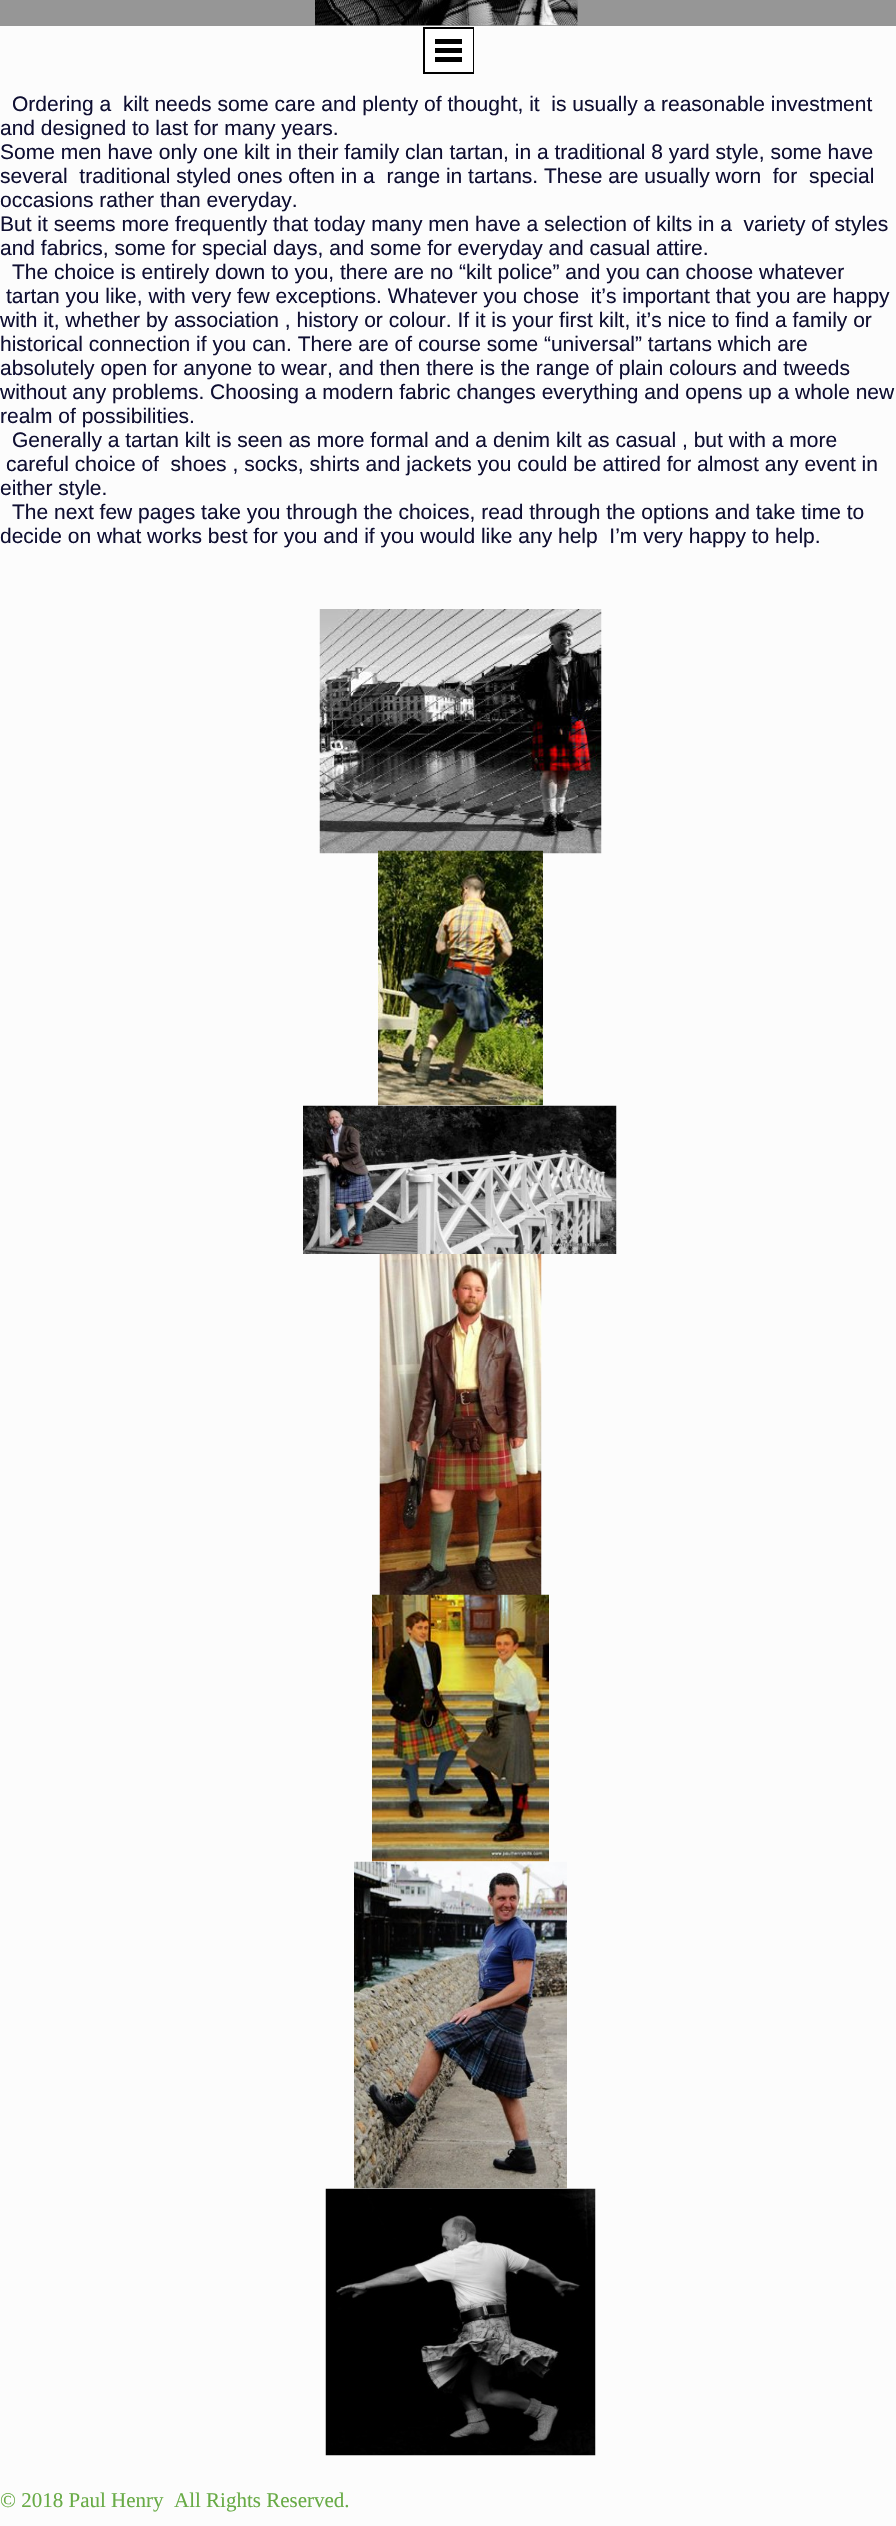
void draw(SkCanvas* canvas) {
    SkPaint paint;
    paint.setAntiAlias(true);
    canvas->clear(0xFFFCFCFC);
    paint.setColor(0xFF969696);
    canvas->drawRect(SkRect::MakeXYWH(0, 0, 896, 26), paint);
    canvas->drawImageRect(SkImages::DeferredFromEncodedData(SkData::MakeFromFileName("img2.png")), SkRect::MakeXYWH(577, 0, 1, 23), SkSamplingOptions());
    canvas->drawImageRect(SkImages::DeferredFromEncodedData(SkData::MakeFromFileName("img1.png")), SkRect::MakeXYWH(315, 0, 263, 26), SkSamplingOptions());
    paint.setStyle(SkPaint::kStroke_Style);
    paint.setStrokeWidth(2);
    paint.setColor(0xFF000000);
    canvas->drawRect(SkRect::MakeXYWH(424, 28, 49, 45), paint);
    paint.setStyle(SkPaint::kFill_Style);
    paint.setColor(0xFFFFFFFF);
    canvas->drawRect(SkRect::MakeXYWH(425, 29, 48, 43), paint);
    paint.setColor(0xFF000000);
    canvas->drawRect(SkRect::MakeXYWH(435, 39, 27, 5), paint);
    canvas->drawRect(SkRect::MakeXYWH(435, 48, 27, 5), paint);
    canvas->drawRect(SkRect::MakeXYWH(435, 57, 27, 5), paint);
    SkFont font1(fontMgr->matchFamilyStyle("Liberation Sans", SkFontStyle::Normal()), 21);
    font1.setSubpixel(true);
    paint.setColor(0xFF0F0F32);
    canvas->drawString("Ordering a  kilt needs some care and plenty of thought, it  is usually a reasonable investment", 12, 111, font1, paint);
    canvas->drawString("and designed to last for many years.", 0, 135, font1, paint);
    canvas->drawString("Some men have only one kilt in their family clan tartan, in a traditional 8 yard style, some have", 0, 159, font1, paint);
    canvas->drawString("several  traditional styled ones often in a  range in tartans. These are usually worn  for  special", 0, 183, font1, paint);
    canvas->drawString("occasions rather than everyday.", 0, 207, font1, paint);
    canvas->drawString("But it seems more frequently that today many men have a selection of kilts in a  variety of styles", 0, 231, font1, paint);
    canvas->drawString("and fabrics, some for special days, and some for everyday and casual attire.", 0, 255, font1, paint);
    canvas->drawString("The choice is entirely down to you, there are no “kilt police” and you can choose whatever", 12, 279, font1, paint);
    canvas->drawString("tartan you like, with very few exceptions. Whatever you chose  it’s important that you are happy", 6, 303, font1, paint);
    canvas->drawString("with it, whether by association , history or colour. If it is your first kilt, it’s nice to find a family or", 0, 327, font1, paint);
    canvas->drawString("historical connection if you can. There are of course some “universal” tartans which are", 0, 351, font1, paint);
    canvas->drawString("absolutely open for anyone to wear, and then there is the range of plain colours and tweeds", 0, 375, font1, paint);
    canvas->drawString("without any problems. Choosing a modern fabric changes everything and opens up a whole new", 0, 399, font1, paint);
    canvas->drawString("realm of possibilities.", 0, 423, font1, paint);
    canvas->drawString("Generally a tartan kilt is seen as more formal and a denim kilt as casual , but with a more", 12, 447, font1, paint);
    canvas->drawString("careful choice of  shoes , socks, shirts and jackets you could be attired for almost any event in", 6, 471, font1, paint);
    canvas->drawString("either style.", 0, 495, font1, paint);
    canvas->drawString("The next few pages take you through the choices, read through the options and take time to", 12, 519, font1, paint);
    canvas->drawString("decide on what works best for you and if you would like any help  I’m very happy to help.", 0, 543, font1, paint);
    canvas->drawImageRect(SkImages::DeferredFromEncodedData(SkData::MakeFromFileName("img3.png")), SkRect::MakeXYWH(319, 609, 283, 245), SkSamplingOptions());
    canvas->drawImageRect(SkImages::DeferredFromEncodedData(SkData::MakeFromFileName("img4.png")), SkRect::MakeXYWH(378, 850, 165, 256), SkSamplingOptions());
    canvas->drawImageRect(SkImages::DeferredFromEncodedData(SkData::MakeFromFileName("img5.png")), SkRect::MakeXYWH(303, 1105, 314, 149), SkSamplingOptions());
    canvas->drawImageRect(SkImages::DeferredFromEncodedData(SkData::MakeFromFileName("img6.png")), SkRect::MakeXYWH(379, 1254, 163, 341), SkSamplingOptions());
    canvas->drawImageRect(SkImages::DeferredFromEncodedData(SkData::MakeFromFileName("img7.png")), SkRect::MakeXYWH(372, 1594, 177, 268), SkSamplingOptions());
    canvas->drawImageRect(SkImages::DeferredFromEncodedData(SkData::MakeFromFileName("img8.png")), SkRect::MakeXYWH(354, 1861, 213, 328), SkSamplingOptions());
    canvas->drawImageRect(SkImages::DeferredFromEncodedData(SkData::MakeFromFileName("img9.png")), SkRect::MakeXYWH(325, 2188, 271, 268), SkSamplingOptions());
    SkFont font2(fontMgr->matchFamilyStyle("Liberation Serif", SkFontStyle::Normal()), 21);
    font2.setSubpixel(true);
    paint.setColor(0xFF68AB46);
    canvas->drawString("© 2018 Paul Henry  All Rights Reserved.", 0, 2507, font2, paint);
}
